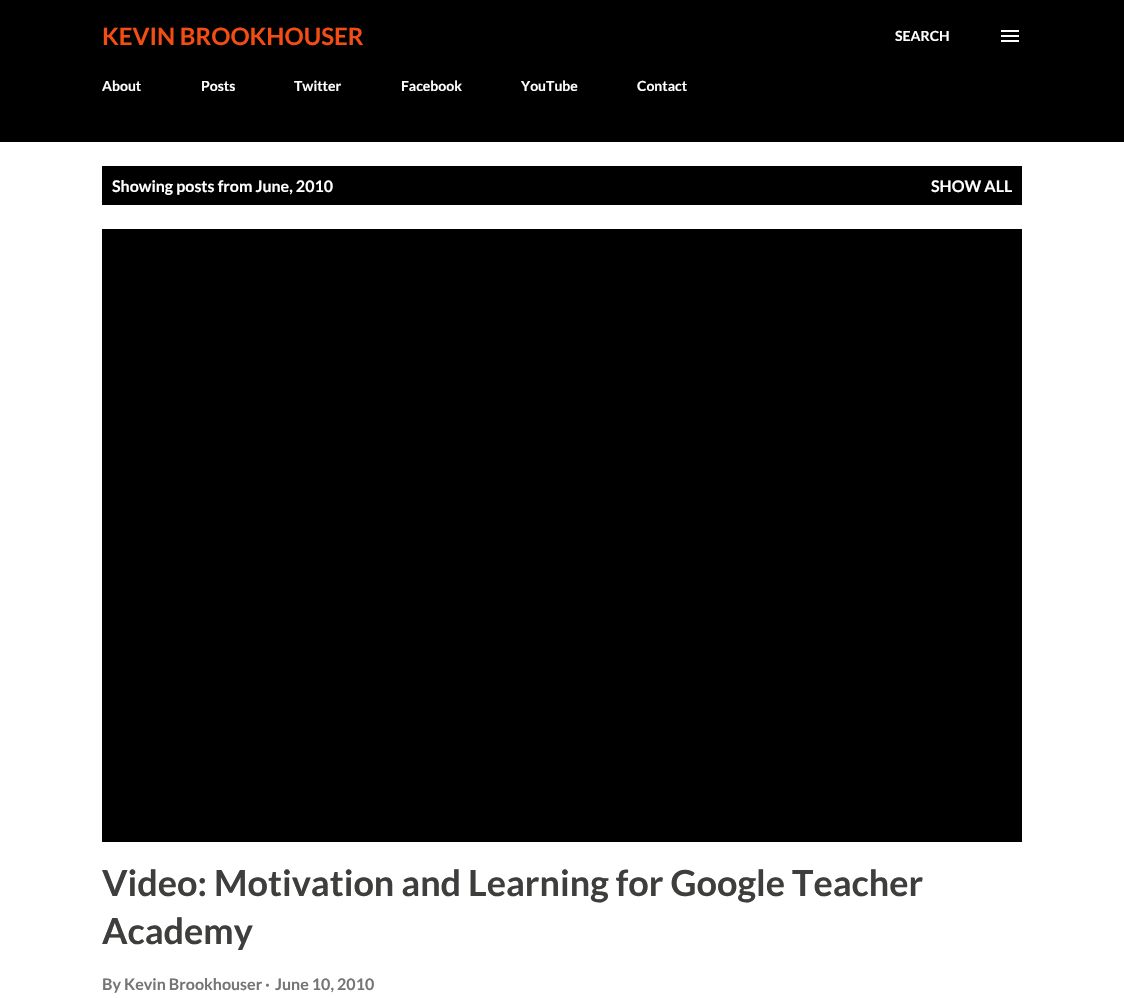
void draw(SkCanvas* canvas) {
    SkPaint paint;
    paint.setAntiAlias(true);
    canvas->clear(0xFFFFFFFF);
    paint.setColor(0xFF000000);
    canvas->drawRect(SkRect::MakeXYWH(0, 0, 1124, 142), paint);
    SkFont font1(fontMgr->matchFamilyStyle("Lato", SkFontStyle::Bold()), 24);
    font1.setSubpixel(true);
    paint.setColor(0xFFF44D14);
    canvas->drawString("KEVIN BROOKHOUSER", 102, 45, font1, paint);
    SkFont font2(fontMgr->matchFamilyStyle("Lato", SkFontStyle::Bold()), 14);
    font2.setSubpixel(true);
    paint.setColor(0xFFFFFFFF);
    canvas->drawString("SEARCH", 895, 41, font2, paint);
    canvas->drawImageRect(SkImages::DeferredFromEncodedData(SkData::MakeFromFileName("img1.png")), SkRect::MakeXYWH(1001, 30, 18, 12), SkSamplingOptions());
    canvas->drawString("About", 102, 91, font2, paint);
    canvas->drawString("Posts", 201, 91, font2, paint);
    canvas->drawString("Twitter", 294, 91, font2, paint);
    canvas->drawString("Facebook", 401, 91, font2, paint);
    canvas->drawString("YouTube", 521, 91, font2, paint);
    canvas->drawString("Contact", 637, 91, font2, paint);
    paint.setColor(0xFF000000);
    canvas->drawRect(SkRect::MakeXYWH(102, 166, 920, 39), paint);
    SkFont font3(fontMgr->matchFamilyStyle("Lato", SkFontStyle::Bold()), 16);
    font3.setSubpixel(true);
    paint.setColor(0xFFFFFFFF);
    canvas->drawString("Showing posts from June, 2010", 112, 192, font3, paint);
    canvas->drawString("SHOW ALL", 931, 192, font3, paint);
    paint.setColor(0xFF000000);
    canvas->drawRect(SkRect::MakeXYWH(102, 229, 920, 613), paint);
    SkFont font4(fontMgr->matchFamilyStyle("Lato", SkFontStyle::Bold()), 36);
    font4.setSubpixel(true);
    paint.setColor(0xFF3E3F3C);
    canvas->drawString("Video: Motivation and Learning for Google Teacher", 102, 896, font4, paint);
    canvas->drawString("Academy", 102, 944, font4, paint);
    paint.setColor(0xFF757575);
    canvas->drawString("By Kevin Brookhouser ·", 102, 990, font3, paint);
    canvas->drawString("June 10, 2010", 275, 990, font3, paint);
}
